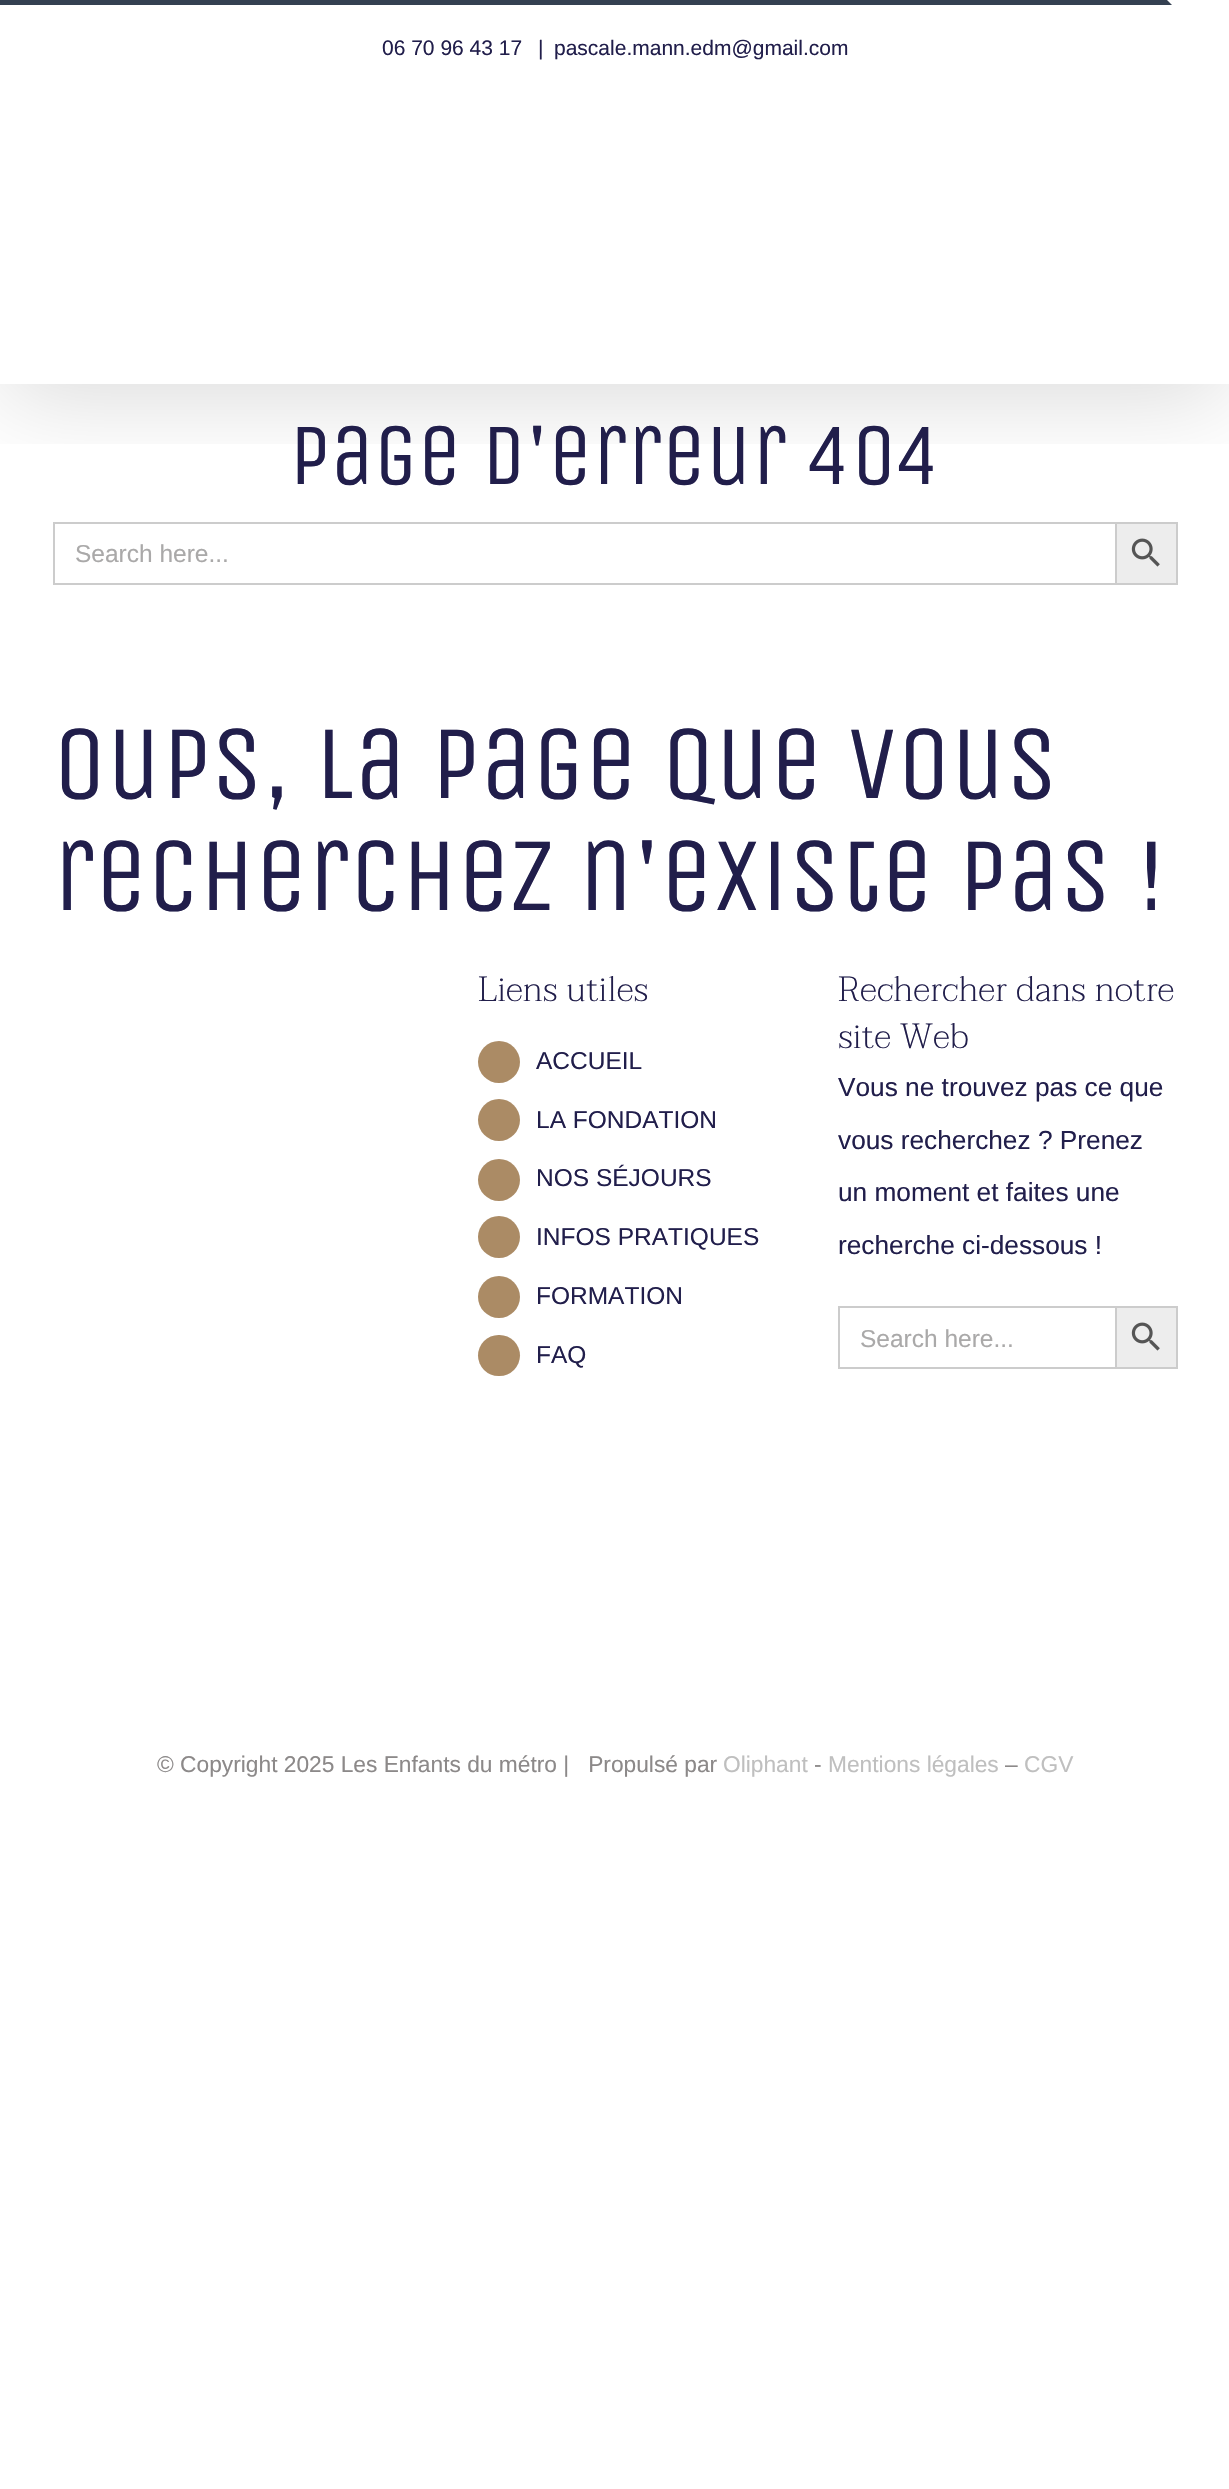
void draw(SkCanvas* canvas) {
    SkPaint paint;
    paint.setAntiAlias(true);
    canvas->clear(0xFFFFFFFF);
    paint.setColor(0xFFCCCCCC);
    canvas->drawRect(SkRect::MakeXYWH(53, 522, 1062, 2), paint);
    canvas->drawRect(SkRect::MakeXYWH(53, 583, 1062, 2), paint);
    canvas->drawRect(SkRect::MakeXYWH(53, 522, 2, 63), paint);
    paint.setColor(0xFFEDEDED);
    canvas->drawRect(SkRect::MakeXYWH(1116, 523, 61, 61), paint);
    paint.setStyle(SkPaint::kStroke_Style);
    paint.setStrokeWidth(2);
    paint.setColor(0xFFCCCCCC);
    canvas->drawRect(SkRect::MakeXYWH(1116, 523, 61, 61), paint);
    canvas->save();
    canvas->clipRect(SkRect::MakeXYWH(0, 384, 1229, 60));
    paint.setStyle(SkPaint::kFill_Style);
    paint.setColor(0x24000000);
    paint.setMaskFilter(SkMaskFilter::MakeBlur(kNormal_SkBlurStyle, 44));
    canvas->drawRect(SkRect::MakeXYWH(4, 21, 1223, 376), paint);
    paint.setMaskFilter(nullptr);
    canvas->restore();
    paint.setColor(0xFF344051);
    canvas->drawRect(SkRect::MakeXYWH(0, 0, 1172, 5), paint);
    SkFont font1(fontMgr->matchFamilyStyle("Liberation Sans", SkFontStyle::Normal()), 21);
    font1.setSubpixel(true);
    paint.setColor(0xFF211E4B);
    canvas->drawString("06 70 96 43 17", 382, 55, font1, paint);
    canvas->drawString("|", 538, 55, font1, paint);
    canvas->drawString("pascale.mann.edm@gmail.com", 554, 55, font1, paint);
    paint.setColor(0xFFFFFFFF);
    canvas->drawRect(SkRect::MakeXYWH(0, 383, 1229, 1), paint);
    canvas->drawPath(SkPathBuilder().moveTo(1167, 0).lineTo(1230, 0).lineTo(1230, 63).close().detach(), paint);
    SkFont font2(fontMgr->matchFamilyStyle("Unica One", SkFontStyle::Normal()), 87.5f);
    font2.setSubpixel(true);
    paint.setColor(0xFF211E4B);
    canvas->drawString("Page d'erreur 404", 289, 484, font2, paint);
    SkFont font3(fontMgr->matchFamilyStyle("Liberation Sans", SkFontStyle::Normal()), 24.5f);
    font3.setSubpixel(true);
    paint.setColor(0xFFAAA9A9);
    canvas->drawString("Search here...", 75, 562, font3, paint);
    canvas->drawImageRect(SkImages::DeferredFromEncodedData(SkData::MakeFromFileName("img1.png")), SkRect::MakeXYWH(1131, 538, 29, 29), SkSamplingOptions());
    SkFont font4(fontMgr->matchFamilyStyle("Unica One", SkFontStyle::Normal()), 105);
    font4.setSubpixel(true);
    paint.setColor(0xFF211E4B);
    canvas->drawString("Oups, la page que vous", 53, 798, font4, paint);
    canvas->drawString("recherchez n'existe pas !", 53, 910, font4, paint);
    SkFont font5(fontMgr->matchFamilyStyle("Taviraj", SkFontStyle(200, SkFontStyle::kNormal_Width, SkFontStyle::kUpright_Slant)), 35);
    font5.setSubpixel(true);
    canvas->drawString("Liens utiles", 478, 1001, font5, paint);
    paint.setColor(0xFFAB8B65);
    canvas->drawCircle(499, 1062, 21, paint);
    paint.setColor(0xFF211E4B);
    canvas->drawString("ACCUEIL", 536, 1069, font3, paint);
    paint.setColor(0xFFAB8B65);
    canvas->drawCircle(499, 1120, 21, paint);
    paint.setColor(0xFF211E4B);
    canvas->drawString("LA FONDATION", 536, 1128, font3, paint);
    paint.setColor(0xFFAB8B65);
    canvas->drawCircle(499, 1180, 21, paint);
    paint.setColor(0xFF211E4B);
    canvas->drawString("NOS SÉJOURS", 536, 1186, font3, paint);
    paint.setColor(0xFFAB8B65);
    canvas->drawCircle(499, 1237, 21, paint);
    paint.setColor(0xFF211E4B);
    canvas->drawString("INFOS PRATIQUES", 536, 1245, font3, paint);
    paint.setColor(0xFFAB8B65);
    canvas->drawCircle(499, 1297, 21, paint);
    paint.setColor(0xFF211E4B);
    canvas->drawString("FORMATION", 536, 1304, font3, paint);
    paint.setColor(0xFFAB8B65);
    canvas->drawRoundRect(SkRect::MakeXYWH(478, 1335, 42, 41), 20.5f, 20.5f, paint);
    paint.setColor(0xFF211E4B);
    canvas->drawString("FAQ", 536, 1363, font3, paint);
    canvas->drawString("Rechercher dans notre", 838, 1001, font5, paint);
    canvas->drawString("site Web", 838, 1048, font5, paint);
    SkFont font6(fontMgr->matchFamilyStyle("Liberation Sans", SkFontStyle::Normal()), 26.25f);
    font6.setSubpixel(true);
    canvas->drawString("Vous ne trouvez pas ce que", 838, 1096, font6, paint);
    canvas->drawString("vous recherchez ? Prenez", 838, 1149, font6, paint);
    canvas->drawString("un moment et faites une", 838, 1201, font6, paint);
    canvas->drawString("recherche ci-dessous !", 838, 1254, font6, paint);
    paint.setColor(0xFFCCCCCC);
    canvas->drawRect(SkRect::MakeXYWH(838, 1306, 277, 2), paint);
    canvas->drawRect(SkRect::MakeXYWH(838, 1367, 277, 2), paint);
    canvas->drawRect(SkRect::MakeXYWH(838, 1306, 2, 63), paint);
    paint.setColor(0xFFAAA9A9);
    canvas->drawString("Search here...", 860, 1347, font3, paint);
    paint.setColor(0xFFEDEDED);
    canvas->drawRect(SkRect::MakeXYWH(1116, 1307, 61, 61), paint);
    paint.setStyle(SkPaint::kStroke_Style);
    paint.setColor(0xFFCCCCCC);
    canvas->drawRect(SkRect::MakeXYWH(1116, 1307, 61, 61), paint);
    canvas->drawImageRect(SkImages::DeferredFromEncodedData(SkData::MakeFromFileName("img1.png")), SkRect::MakeXYWH(1131, 1322, 29, 29), SkSamplingOptions());
    SkFont font7(fontMgr->matchFamilyStyle("Liberation Sans", SkFontStyle::Normal()), 22.75f);
    font7.setSubpixel(true);
    paint.setStyle(SkPaint::kFill_Style);
    paint.setColor(0xFF8C8989);
    canvas->drawString("© Copyright 2025 Les Enfants du métro |   Propulsé par", 157, 1772, font7, paint);
    paint.setColor(0xFFBFBFBF);
    canvas->drawString("Oliphant", 723, 1772, font7, paint);
    paint.setColor(0xFF8C8989);
    canvas->drawString("-", 814, 1772, font7, paint);
    paint.setColor(0xFFBFBFBF);
    canvas->drawString("Mentions légales", 828, 1772, font7, paint);
    paint.setColor(0xFF8C8989);
    canvas->drawString("–", 1005, 1772, font7, paint);
    paint.setColor(0xFFBFBFBF);
    canvas->drawString("CGV", 1024, 1772, font7, paint);
}
